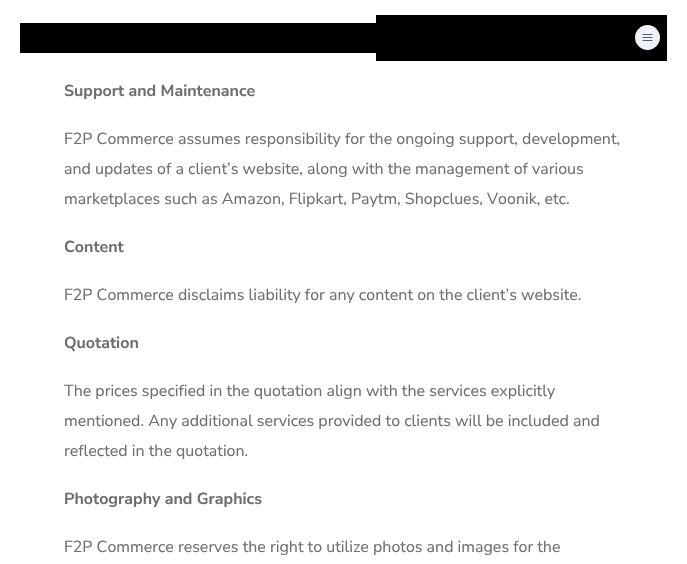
void draw(SkCanvas* canvas) {
    SkPaint paint;
    paint.setAntiAlias(true);
    canvas->clear(0xFFFFFFFF);
    paint.setColor(0xFF000000);
    canvas->drawRect(SkRect::MakeXYWH(20, 23, 356, 30), paint);
    canvas->drawRect(SkRect::MakeXYWH(376, 15, 291, 46), paint);
    paint.setColor(0xFFEEF1F7);
    canvas->drawCircle(647.5f, 37.5f, 12.5f, paint);
    paint.setStyle(SkPaint::kStroke_Style);
    paint.setStrokeWidth(1.2f);
    paint.setStrokeCap(SkPaint::kRound_Cap);
    paint.setStrokeJoin(SkPaint::kRound_Join);
    paint.setColor(0xFF4D5E6F);
    canvas->drawPath(SkPathBuilder().moveTo(643, 34.5f).lineTo(652, 34.5f).moveTo(643, 37.5f).lineTo(652, 37.5f).moveTo(643, 40.5f).lineTo(652, 40.5f).detach(), paint);
    SkFont font1(fontMgr->matchFamilyStyle("Nunito Sans", SkFontStyle::Bold()), 16);
    font1.setSubpixel(true);
    paint.setStyle(SkPaint::kFill_Style);
    paint.setColor(0xFF6E6E6E);
    canvas->drawString("Support and Maintenance", 64, 96, font1, paint);
    SkFont font2(fontMgr->matchFamilyStyle("Nunito Sans", SkFontStyle::Normal()), 16);
    font2.setSubpixel(true);
    canvas->drawString("F2P Commerce assumes responsibility for the ongoing support, development,", 64, 144, font2, paint);
    canvas->drawString("and updates of a client’s website, along with the management of various", 64, 174, font2, paint);
    canvas->drawString("marketplaces such as Amazon, Flipkart, Paytm, Shopclues, Voonik, etc.", 64, 204, font2, paint);
    canvas->drawString("Content", 64, 252, font1, paint);
    canvas->drawString("F2P Commerce disclaims liability for any content on the client’s website.", 64, 300, font2, paint);
    canvas->drawString("Quotation", 64, 348, font1, paint);
    canvas->drawString("The prices specified in the quotation align with the services explicitly", 64, 396, font2, paint);
    canvas->drawString("mentioned. Any additional services provided to clients will be included and", 64, 426, font2, paint);
    canvas->drawString("reflected in the quotation.", 64, 456, font2, paint);
    canvas->drawString("Photography and Graphics", 64, 504, font1, paint);
    canvas->drawString("F2P Commerce reserves the right to utilize photos and images for the", 64, 552, font2, paint);
}
